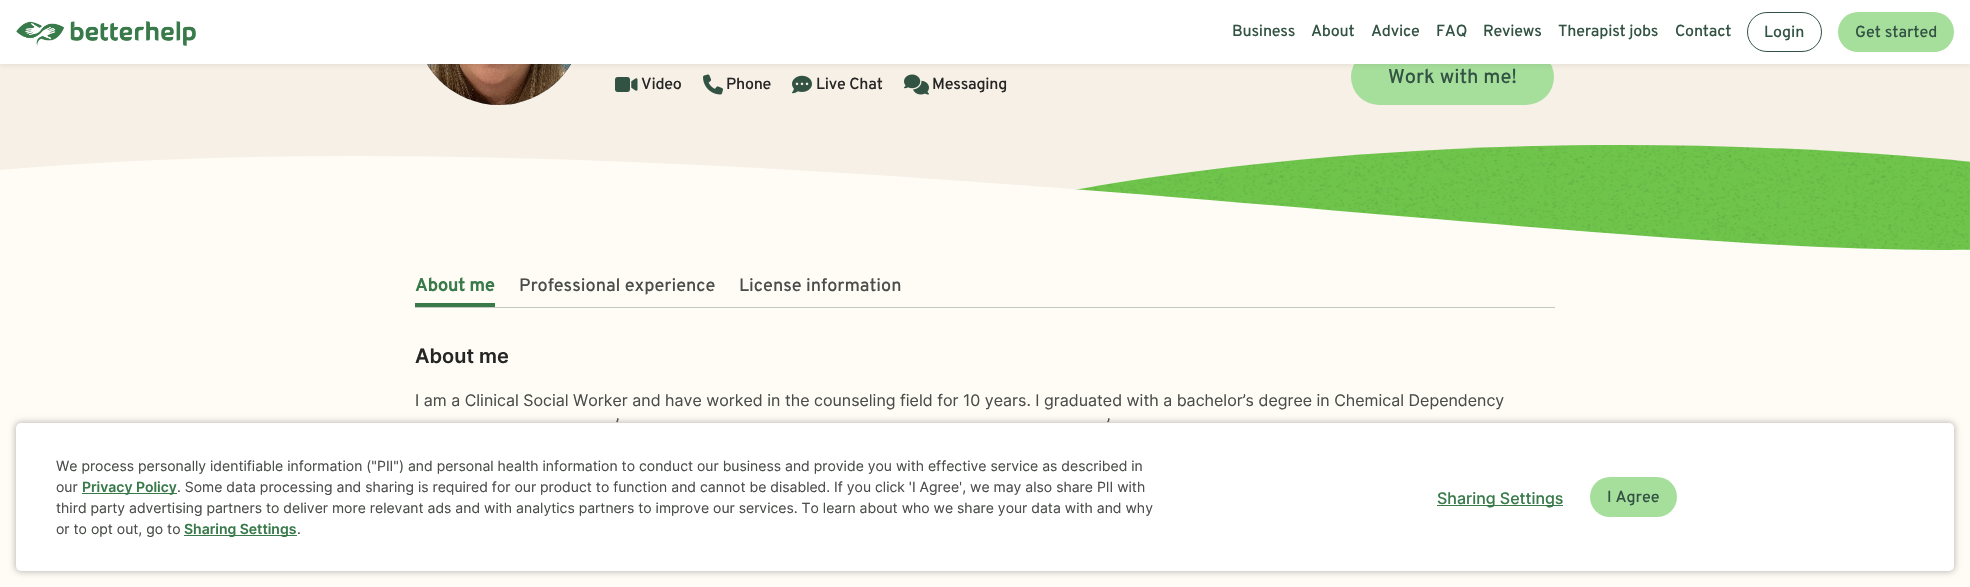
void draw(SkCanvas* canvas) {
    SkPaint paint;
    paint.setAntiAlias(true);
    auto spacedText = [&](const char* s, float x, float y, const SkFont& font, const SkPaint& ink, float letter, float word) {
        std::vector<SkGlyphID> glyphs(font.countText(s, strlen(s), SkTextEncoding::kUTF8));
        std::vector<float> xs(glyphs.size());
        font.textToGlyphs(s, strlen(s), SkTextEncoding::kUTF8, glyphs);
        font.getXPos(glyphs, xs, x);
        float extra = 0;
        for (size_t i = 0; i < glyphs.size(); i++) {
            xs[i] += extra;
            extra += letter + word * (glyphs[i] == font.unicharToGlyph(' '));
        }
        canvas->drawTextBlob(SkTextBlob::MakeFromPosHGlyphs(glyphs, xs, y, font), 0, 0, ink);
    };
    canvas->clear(0xFFFFFCF6);
    paint.setColor(0xFFF7F0E6);
    canvas->drawRect(SkRect::MakeXYWH(0, 64, 1970, 106), paint);
    canvas->drawImageRect(SkImages::DeferredFromEncodedData(SkData::MakeFromFileName("img2.png")), SkRect::MakeXYWH(427, 64, 144, 41), SkSamplingOptions());
    paint.setColor(0xFFA6DE9B);
    canvas->drawRoundRect(SkRect::MakeXYWH(1351, 49, 203, 56), 28, 28, paint);
    paint.setColor(0x1A252625);
    paint.setMaskFilter(SkMaskFilter::MakeBlur(kNormal_SkBlurStyle, 2.5f));
    canvas->drawRect(SkRect::MakeXYWH(0, 1, 1970, 64), paint);
    paint.setMaskFilter(nullptr);
    paint.setColor(0xFFFFFFFF);
    canvas->drawRect(SkRect::MakeXYWH(0, 0, 1970, 64), paint);
    canvas->drawImageRect(SkImages::DeferredFromEncodedData(SkData::MakeFromFileName("img1.png")), SkRect::MakeXYWH(16, 21, 180, 25), SkSamplingOptions());
    SkFont font1(fontMgr->matchFamilyStyle("Overpass", SkFontStyle(500, SkFontStyle::kNormal_Width, SkFontStyle::kUpright_Slant)), 16);
    font1.setSubpixel(true);
    paint.setColor(0xFF325343);
    spacedText("Business", 1232, 36, font1, paint, -0.2f, 0);
    spacedText("About", 1311, 36, font1, paint, -0.2f, 0);
    spacedText("Advice", 1371, 36, font1, paint, -0.2f, 0);
    spacedText("FAQ", 1436, 36, font1, paint, -0.2f, 0);
    spacedText("Reviews", 1483, 36, font1, paint, -0.2f, 0);
    spacedText("Therapist jobs", 1558, 36, font1, paint, -0.2f, 0);
    spacedText("Contact", 1675, 36, font1, paint, -0.2f, 0);
    paint.setStyle(SkPaint::kStroke_Style);
    paint.setStrokeWidth(1);
    canvas->drawRoundRect(SkRect::MakeXYWH(1747.5f, 12.5f, 74, 39), 19.5f, 19.5f, paint);
    paint.setStyle(SkPaint::kFill_Style);
    canvas->drawString("Login", 1764, 37, font1, paint);
    paint.setColor(0xFFA6DE9B);
    canvas->drawRoundRect(SkRect::MakeXYWH(1838, 12, 116, 40), 20, 20, paint);
    paint.setColor(0xFF325343);
    canvas->drawString("Get started", 1855, 37, font1, paint);
    canvas->drawImageRect(SkImages::DeferredFromEncodedData(SkData::MakeFromFileName("img3.png")), SkRect::MakeXYWH(615, 77, 23, 15), SkSamplingOptions());
    paint.setColor(0xFF252625);
    spacedText("Video", 641, 89, font1, paint, -0.2f, 0);
    canvas->drawImageRect(SkImages::DeferredFromEncodedData(SkData::MakeFromFileName("img4.png")), SkRect::MakeXYWH(703, 74, 20, 21), SkSamplingOptions());
    spacedText("Phone", 726, 89, font1, paint, -0.2f, 0);
    canvas->drawImageRect(SkImages::DeferredFromEncodedData(SkData::MakeFromFileName("img5.png")), SkRect::MakeXYWH(792, 75, 20, 19), SkSamplingOptions());
    spacedText("Live Chat", 816, 89, font1, paint, -0.2f, 0);
    canvas->drawImageRect(SkImages::DeferredFromEncodedData(SkData::MakeFromFileName("img6.png")), SkRect::MakeXYWH(904, 74, 25, 21), SkSamplingOptions());
    spacedText("Messaging", 932, 89, font1, paint, -0.2f, 0);
    SkFont font2(fontMgr->matchFamilyStyle("Overpass", SkFontStyle(500, SkFontStyle::kNormal_Width, SkFontStyle::kUpright_Slant)), 20);
    font2.setSubpixel(true);
    paint.setColor(0xFF325343);
    canvas->drawString("Work with me!", 1388, 83, font2, paint);
    canvas->drawImageRect(SkImages::DeferredFromEncodedData(SkData::MakeFromFileName("img7.png")), SkRect::MakeXYWH(0, 145, 1970, 112), SkSamplingOptions());
    paint.setColor(0xFFC3C8C1);
    canvas->drawRect(SkRect::MakeXYWH(415, 307, 1140, 1), paint);
    paint.setColor(0xFF397A4A);
    canvas->drawRect(SkRect::MakeXYWH(415, 303, 80, 4), paint);
    SkFont font3(fontMgr->matchFamilyStyle("Overpass", SkFontStyle::Bold()), 18);
    font3.setSubpixel(true);
    canvas->drawString("About me", 415, 291, font3, paint);
    SkFont font4(fontMgr->matchFamilyStyle("Overpass", SkFontStyle(500, SkFontStyle::kNormal_Width, SkFontStyle::kUpright_Slant)), 18);
    font4.setSubpixel(true);
    paint.setColor(0xFF4A4D4A);
    canvas->drawString("Professional experience", 519, 291, font4, paint);
    canvas->drawString("License information", 739, 291, font4, paint);
    SkFont font5(fontMgr->matchFamilyStyle("Inter", SkFontStyle(600, SkFontStyle::kNormal_Width, SkFontStyle::kUpright_Slant)), 20);
    font5.setSubpixel(true);
    paint.setColor(0xFF252625);
    canvas->drawString("About me", 415, 363, font5, paint);
    SkFont font6(fontMgr->matchFamilyStyle("Inter", SkFontStyle::Normal()), 16);
    font6.setSubpixel(true);
    paint.setColor(0xFF4A4D4A);
    canvas->drawString("I am a Clinical Social Worker and have worked in the counseling field for 10 years. I graduated with a bachelor’s degree in Chemical Dependency", 415, 406, font6, paint);
    canvas->drawString("’", 616, 430, font6, paint);
    canvas->drawString("’", 1107, 430, font6, paint);
    paint.setColor(0x40000000);
    paint.setMaskFilter(SkMaskFilter::MakeBlur(kNormal_SkBlurStyle, 3));
    canvas->drawRoundRect(SkRect::MakeXYWH(15, 422, 1940, 150), 6, 6, paint);
    paint.setMaskFilter(nullptr);
    paint.setColor(0xFFFFFFFF);
    canvas->drawRoundRect(SkRect::MakeXYWH(16, 423, 1938, 148), 5, 5, paint);
    SkFont font7(fontMgr->matchFamilyStyle("Inter", SkFontStyle::Normal()), 14);
    font7.setSubpixel(true);
    paint.setColor(0xFF4A4D4A);
    canvas->drawString("We process personally identifiable information (\"PII\") and personal health information to conduct our business and provide you with effective service as described in", 56, 471, font7, paint);
    canvas->drawString("our", 56, 492, font7, paint);
    paint.setColor(0xFF397A4A);
    canvas->drawRect(SkRect::MakeXYWH(82, 493, 95, 1), paint);
    SkFont font8(fontMgr->matchFamilyStyle("Inter", SkFontStyle(600, SkFontStyle::kNormal_Width, SkFontStyle::kUpright_Slant)), 14);
    font8.setSubpixel(true);
    canvas->drawString("Privacy Policy", 82, 492, font8, paint);
    paint.setColor(0xFF4A4D4A);
    canvas->drawString(". Some data processing and sharing is required for our product to function and cannot be disabled. If you click 'I Agree', we may also share PII with", 177, 492, font7, paint);
    canvas->drawString("third party advertising partners to deliver more relevant ads and with analytics partners to improve our services. To learn about who we share your data with and why", 56, 513, font7, paint);
    canvas->drawString("or to opt out, go to", 56, 534, font7, paint);
    paint.setColor(0xFF397A4A);
    canvas->drawRect(SkRect::MakeXYWH(184, 535, 113, 1), paint);
    canvas->drawString("Sharing Settings", 184, 534, font8, paint);
    paint.setColor(0xFF4A4D4A);
    canvas->drawString(".", 297, 534, font7, paint);
    paint.setColor(0xFF397A4A);
    canvas->drawRect(SkRect::MakeXYWH(1437, 505, 126, 1), paint);
    SkFont font9(fontMgr->matchFamilyStyle("Inter", SkFontStyle(500, SkFontStyle::kNormal_Width, SkFontStyle::kUpright_Slant)), 16);
    font9.setSubpixel(true);
    canvas->drawString("Sharing Settings", 1437, 504, font9, paint);
    paint.setColor(0xFFA6DE9B);
    canvas->drawRoundRect(SkRect::MakeXYWH(1590, 477, 87, 40), 20, 20, paint);
    paint.setColor(0xFF325343);
    canvas->drawString("I Agree", 1607, 502, font1, paint);
}
